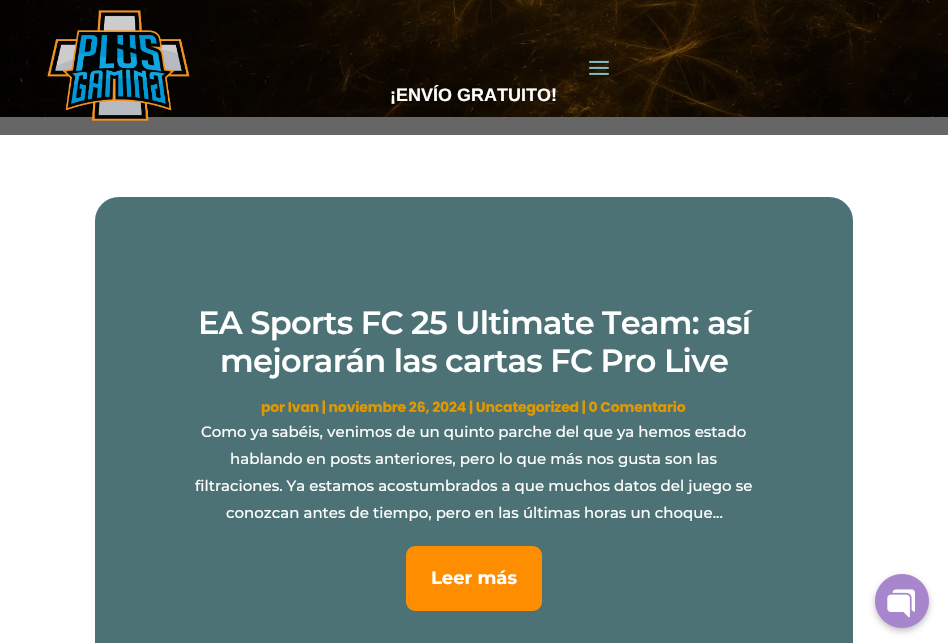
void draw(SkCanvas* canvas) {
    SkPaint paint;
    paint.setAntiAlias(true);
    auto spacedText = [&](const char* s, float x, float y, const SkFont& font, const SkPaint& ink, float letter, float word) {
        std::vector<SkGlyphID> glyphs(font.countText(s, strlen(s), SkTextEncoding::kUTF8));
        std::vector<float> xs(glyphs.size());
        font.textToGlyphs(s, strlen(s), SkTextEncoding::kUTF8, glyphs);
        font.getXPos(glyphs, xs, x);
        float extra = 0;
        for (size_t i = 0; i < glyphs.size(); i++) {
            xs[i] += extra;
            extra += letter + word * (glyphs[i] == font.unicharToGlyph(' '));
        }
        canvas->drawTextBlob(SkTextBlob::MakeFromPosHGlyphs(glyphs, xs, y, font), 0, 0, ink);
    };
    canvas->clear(0xFFFFFFFF);
    canvas->drawImageRect(SkImages::DeferredFromEncodedData(SkData::MakeFromFileName("img3.png")), SkRect::MakeXYWH(0, 0, 948, 117), SkSamplingOptions());
    paint.setColor(0x99000000);
    canvas->drawRect(SkRect::MakeXYWH(0, 0, 948, 135), paint);
    canvas->drawImageRect(SkImages::DeferredFromEncodedData(SkData::MakeFromFileName("img1.png")), SkRect::MakeXYWH(47, 10, 143, 111), SkSamplingOptions());
    canvas->drawImageRect(SkImages::DeferredFromEncodedData(SkData::MakeFromFileName("img2.png")), SkRect::MakeXYWH(589, 60, 20, 15), SkSamplingOptions());
    SkFont font1(fontMgr->matchFamilyStyle("Liberation Sans", SkFontStyle::Bold()), 18);
    font1.setSubpixel(true);
    paint.setColor(0xFFFFFFFF);
    canvas->drawString("¡ENVÍO GRATUITO!", 390, 101, font1, paint);
    paint.setColor(0xFF7EBEC5);
    canvas->drawRoundRect(SkRect::MakeXYWH(95, 197, 758, 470), 24, 24, paint);
    paint.setColor(0x66000000);
    canvas->drawRoundRect(SkRect::MakeXYWH(95, 197, 758, 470), 24, 24, paint);
    SkFont font2(fontMgr->matchFamilyStyle("Montserrat", SkFontStyle(600, SkFontStyle::kNormal_Width, SkFontStyle::kUpright_Slant)), 32);
    font2.setSubpixel(true);
    paint.setColor(0xFFFFFFFF);
    spacedText("EA Sports FC 25 Ultimate Team: así", 198, 334, font2, paint, -0.65f, 0);
    spacedText("mejorarán las cartas FC Pro Live", 220, 372, font2, paint, -0.65f, 0);
    SkFont font3(fontMgr->matchFamilyStyle("Poppins", SkFontStyle::Bold()), 14);
    font3.setSubpixel(true);
    paint.setColor(0xFFE09900);
    spacedText("por Ivan | noviembre 26, 2024 | Uncategorized | 0 Comentario", 261, 412, font3, paint, -0.15f, 0);
    SkFont font4(fontMgr->matchFamilyStyle("Montserrat", SkFontStyle(500, SkFontStyle::kNormal_Width, SkFontStyle::kUpright_Slant)), 15);
    font4.setSubpixel(true);
    paint.setColor(0xFFFFFFFF);
    canvas->drawString("Como ya sabéis, venimos de un quinto parche del que ya hemos estado", 201, 437, font4, paint);
    canvas->drawString("hablando en posts anteriores, pero lo que más nos gusta son las", 230, 464, font4, paint);
    canvas->drawString("filtraciones. Ya estamos acostumbrados a que muchos datos del juego se", 195, 491, font4, paint);
    canvas->drawString("conozcan antes de tiempo, pero en las últimas horas un choque...", 226, 518, font4, paint);
    paint.setColor(0xFFFF8D00);
    canvas->drawPath(SkPathBuilder().moveTo(416, 546).lineTo(532, 546).cubicTo(538, 546, 542, 550, 542, 556).lineTo(542, 601).cubicTo(542, 607, 538, 611, 532, 611).lineTo(416, 611).cubicTo(410, 611, 406, 607, 406, 601).lineTo(406, 556).cubicTo(406, 550, 410, 546, 416, 546).close().detach(), paint);
    SkFont font5(fontMgr->matchFamilyStyle("Montserrat", SkFontStyle::Bold()), 18);
    font5.setSubpixel(true);
    paint.setColor(0xFFFFFFFF);
    canvas->drawString("Leer más", 431, 584, font5, paint);
    paint.setColor(0x40000000);
    paint.setMaskFilter(SkMaskFilter::MakeBlur(kNormal_SkBlurStyle, 3));
    canvas->drawRoundRect(SkRect::MakeXYWH(875, 577, 54, 54), 27, 27, paint);
    paint.setMaskFilter(nullptr);
    canvas->drawImageRect(SkImages::DeferredFromEncodedData(SkData::MakeFromFileName("img4.png")), SkRect::MakeXYWH(875, 574, 54, 54), SkSamplingOptions());
}
